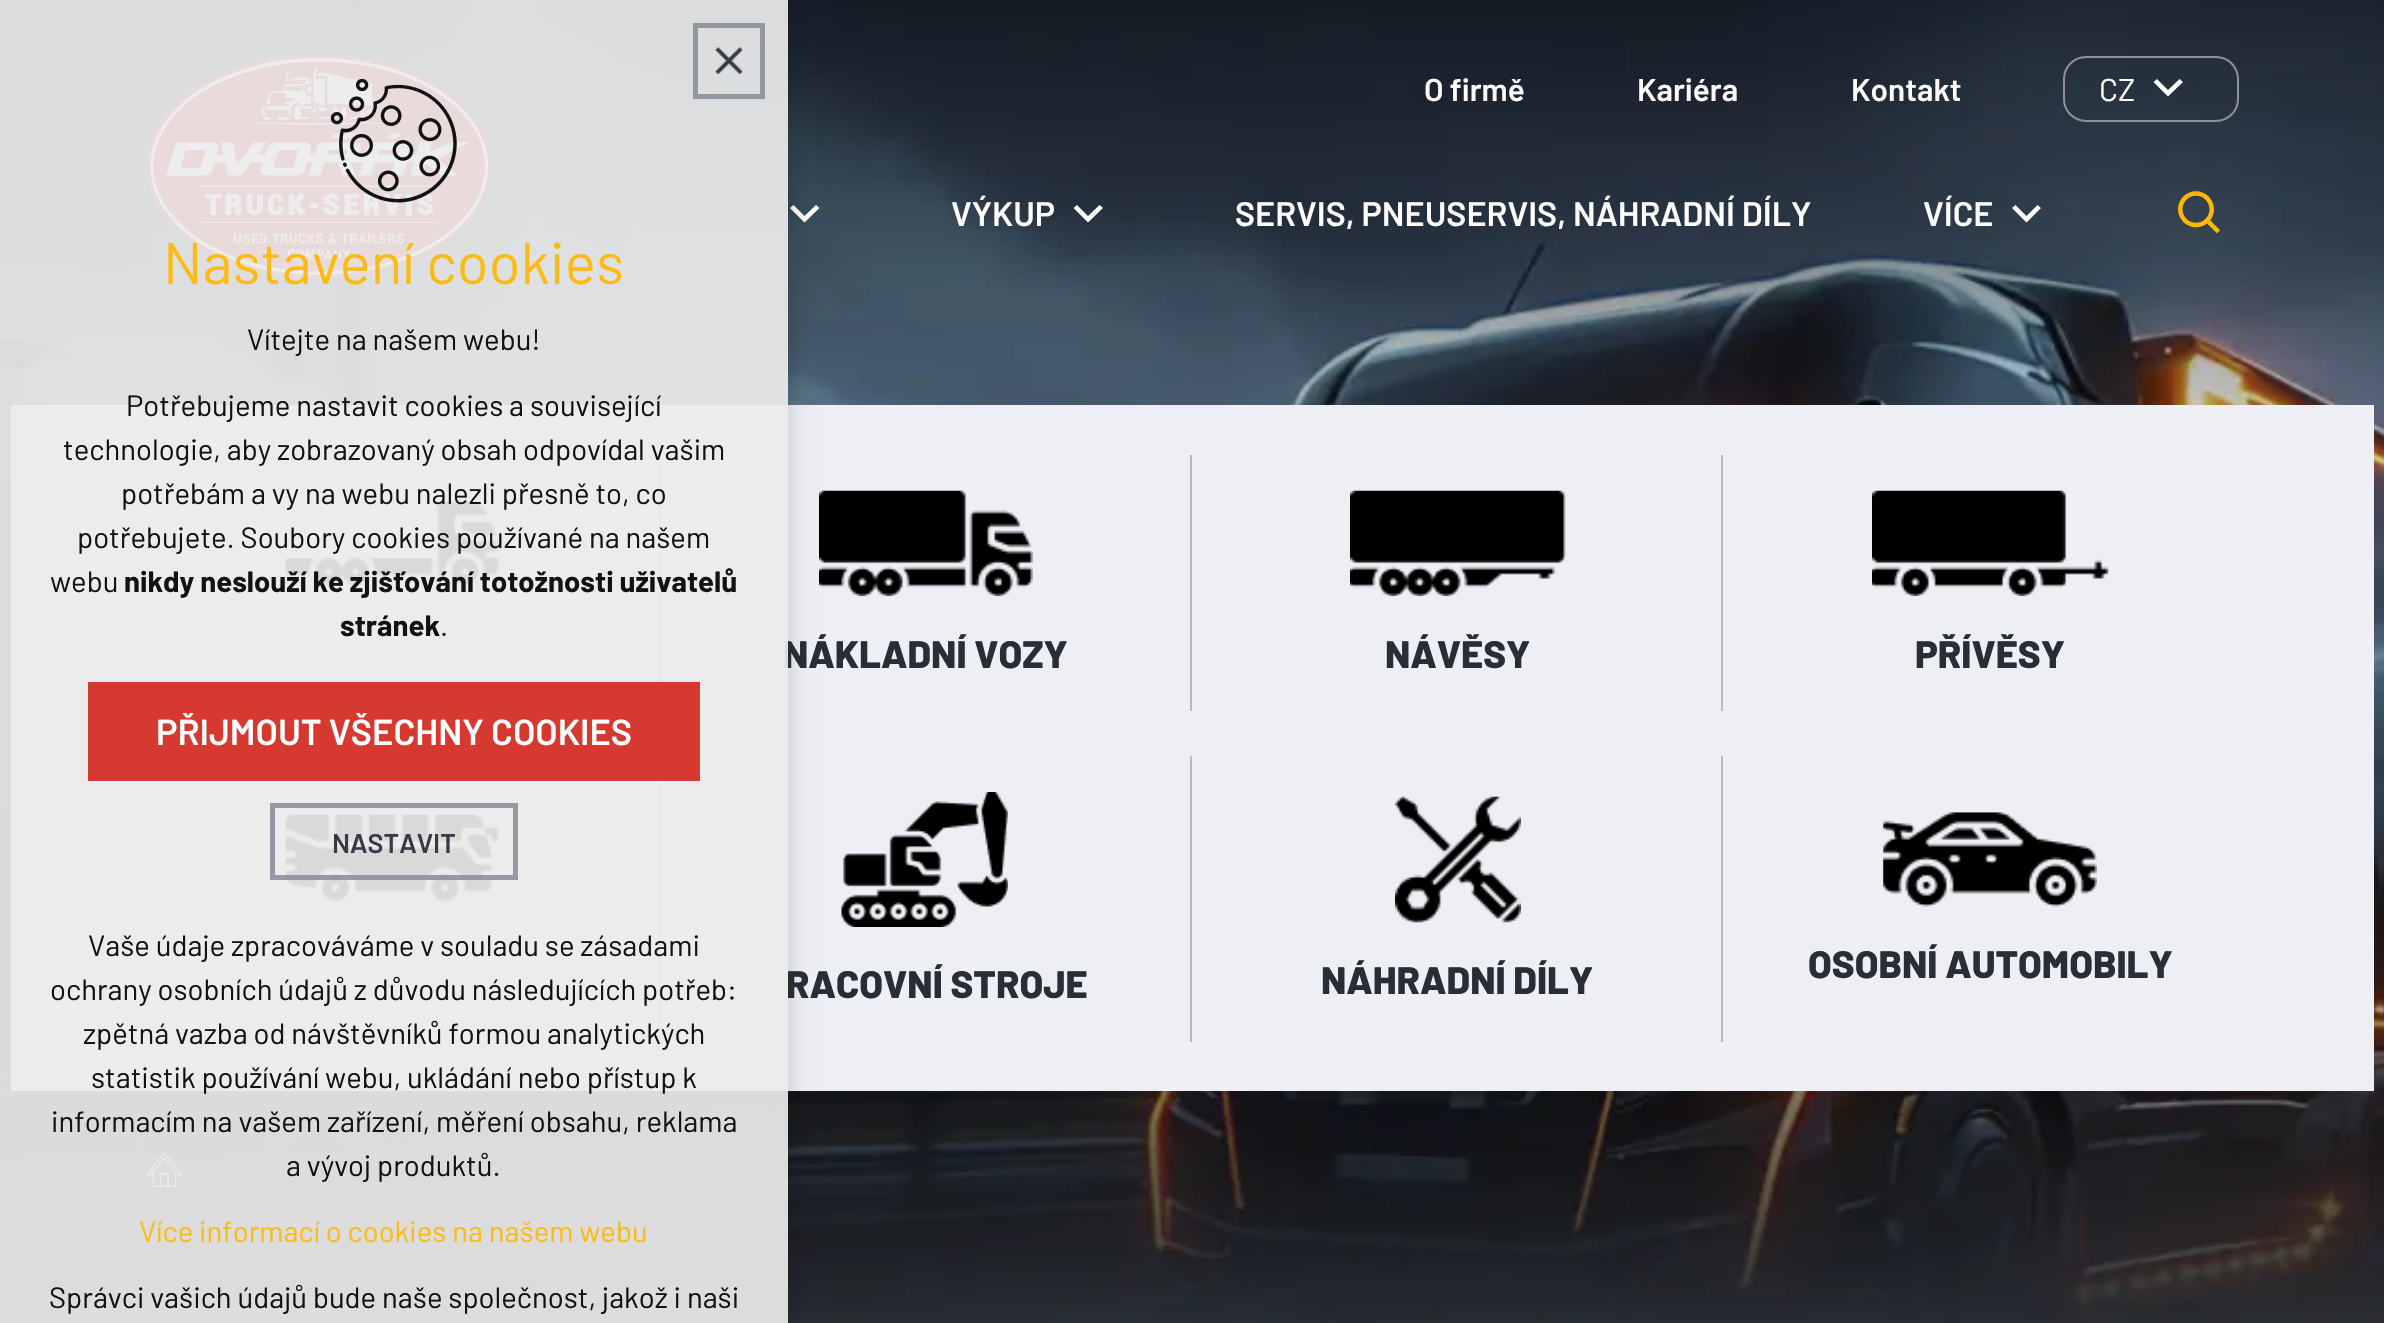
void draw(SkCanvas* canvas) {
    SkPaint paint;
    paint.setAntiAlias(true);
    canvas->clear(0xFFFFFFFF);
    canvas->drawImageRect(SkImages::DeferredFromEncodedData(SkData::MakeFromFileName("img1.png")), SkRect::MakeXYWH(0, 0, 2384, 1323), SkSamplingOptions());
    canvas->drawImageRect(SkImages::DeferredFromEncodedData(SkData::MakeFromFileName("img2.png")), SkRect::MakeXYWH(146, 54, 347, 225), SkSamplingOptions());
    SkFont font1(fontMgr->matchFamilyStyle("Barlow", SkFontStyle(600, SkFontStyle::kNormal_Width, SkFontStyle::kUpright_Slant)), 31.5f);
    font1.setSubpixel(true);
    paint.setColor(0xFFFDFDFD);
    canvas->drawString("O firmě", 1424, 101, font1, paint);
    canvas->drawString("Kariéra", 1637, 101, font1, paint);
    canvas->drawString("Kontakt", 1851, 101, font1, paint);
    paint.setStyle(SkPaint::kStroke_Style);
    paint.setStrokeWidth(2);
    paint.setColor(0xFF8D929B);
    canvas->drawRoundRect(SkRect::MakeXYWH(2064, 57, 174, 64), 22, 22, paint);
    SkFont font2(fontMgr->matchFamilyStyle("Barlow", SkFontStyle::Normal()), 31.5f);
    font2.setSubpixel(true);
    paint.setStyle(SkPaint::kFill_Style);
    paint.setColor(0xFFFDFDFD);
    canvas->drawString("CZ", 2099, 101, font2, paint);
    canvas->drawPath(SkPathBuilder().moveTo(2157, 79).lineTo(2168, 90).lineTo(2179.5f, 79).lineTo(2183, 82).lineTo(2168, 96.5f).lineTo(2153.5f, 82).close().detach(), paint);
    canvas->drawPath(SkPathBuilder().moveTo(793.5f, 205).lineTo(804.5f, 216).lineTo(816, 205).lineTo(819.5f, 208).lineTo(804.5f, 222.5f).lineTo(790, 208).close().detach(), paint);
    SkFont font3(fontMgr->matchFamilyStyle("Barlow", SkFontStyle(600, SkFontStyle::kNormal_Width, SkFontStyle::kUpright_Slant)), 34);
    font3.setSubpixel(true);
    canvas->drawString("VÝKUP", 951, 226, font3, paint);
    canvas->drawPath(SkPathBuilder().moveTo(1077, 205).lineTo(1088, 216).lineTo(1099.5f, 205).lineTo(1103, 208).lineTo(1088, 222.5f).lineTo(1073.5f, 208).close().detach(), paint);
    canvas->drawString("SERVIS, PNEUSERVIS, NÁHRADNÍ DÍLY", 1235, 226, font3, paint);
    canvas->drawString("VÍCE", 1923, 226, font3, paint);
    canvas->drawPath(SkPathBuilder().moveTo(2015.5f, 205).lineTo(2026.5f, 216).lineTo(2037.5f, 205).lineTo(2041, 208).lineTo(2026.5f, 222.5f).lineTo(2012, 208).close().detach(), paint);
    canvas->drawImageRect(SkImages::DeferredFromEncodedData(SkData::MakeFromFileName("img3.png")), SkRect::MakeXYWH(2178, 191, 42, 43), SkSamplingOptions());
    paint.setColor(0xFFEDEFF4);
    canvas->drawRect(SkRect::MakeXYWH(11, 405, 2363, 686), paint);
    paint.setColor(0xFFB4B9C2);
    canvas->drawRect(SkRect::MakeXYWH(659, 455, 2, 256), paint);
    canvas->drawImageRect(SkImages::DeferredFromEncodedData(SkData::MakeFromFileName("img6.png")), SkRect::MakeXYWH(285, 501, 215, 84), SkSamplingOptions());
    canvas->drawImageRect(SkImages::DeferredFromEncodedData(SkData::MakeFromFileName("img7.png")), SkRect::MakeXYWH(819, 490, 214, 107), SkSamplingOptions());
    canvas->drawRect(SkRect::MakeXYWH(659, 756, 2, 286), paint);
    canvas->drawImageRect(SkImages::DeferredFromEncodedData(SkData::MakeFromFileName("img10.png")), SkRect::MakeXYWH(285, 814, 215, 89), SkSamplingOptions());
    canvas->drawImageRect(SkImages::DeferredFromEncodedData(SkData::MakeFromFileName("img14.png")), SkRect::MakeXYWH(146, 1153, 36, 34), SkSamplingOptions());
    canvas->save();
    canvas->clipPath(SkPathBuilder(SkPathFillType::kEvenOdd).moveTo(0, 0).lineTo(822, 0).lineTo(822, 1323).lineTo(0, 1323).close().moveTo(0, 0).lineTo(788, 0).lineTo(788, 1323).lineTo(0, 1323).close().detach(), true);
    paint.setColor(0x2E010101);
    paint.setMaskFilter(SkMaskFilter::MakeBlur(kNormal_SkBlurStyle, 11));
    canvas->drawRect(SkRect::MakeXYWH(0, 0, 788, 1323), paint);
    paint.setMaskFilter(nullptr);
    canvas->restore();
    SkFont font4(fontMgr->matchFamilyStyle("Barlow", SkFontStyle(800, SkFontStyle::kNormal_Width, SkFontStyle::kUpright_Slant)), 38.25f);
    font4.setSubpixel(true);
    paint.setColor(0xFF292D35);
    canvas->drawString("NÁKLADNÍ VOZY", 783, 668, font4, paint);
    canvas->drawString("RACOVNÍ STROJE", 786, 998, font4, paint);
    paint.setColor(0xEBEBEBEB);
    canvas->drawRect(SkRect::MakeXYWH(0, 0, 788, 1323), paint);
    paint.setStyle(SkPaint::kStroke_Style);
    paint.setStrokeWidth(5);
    paint.setColor(0xFF9398A0);
    canvas->drawRect(SkRect::MakeXYWH(695.5f, 25.5f, 67, 71), paint);
    canvas->drawImageRect(SkImages::DeferredFromEncodedData(SkData::MakeFromFileName("img4.png")), SkRect::MakeXYWH(715, 47, 28, 28), SkSamplingOptions());
    canvas->drawImageRect(SkImages::DeferredFromEncodedData(SkData::MakeFromFileName("img5.png")), SkRect::MakeXYWH(331, 79, 126, 124), SkSamplingOptions());
    SkFont font5(fontMgr->matchFamilyStyle("Barlow", SkFontStyle::Normal()), 58.5f);
    font5.setSubpixel(true);
    paint.setStyle(SkPaint::kFill_Style);
    paint.setColor(0xFFFCBB12);
    canvas->drawString("Nastavení cookies", 163, 284, font5, paint);
    SkFont font6(fontMgr->matchFamilyStyle("Barlow", SkFontStyle::Normal()), 29.25f);
    font6.setSubpixel(true);
    paint.setColor(0xFF121212);
    canvas->drawString("Vítejte na našem webu!", 247, 350, font6, paint);
    canvas->drawString("Potřebujeme nastavit cookies a související", 126, 416, font6, paint);
    canvas->drawString("technologie, aby zobrazovaný obsah odpovídal vašim", 63, 460, font6, paint);
    canvas->drawString("potřebám a vy na webu nalezli přesně to, co", 121, 504, font6, paint);
    canvas->drawString("potřebujete. Soubory cookies používané na našem", 77, 548, font6, paint);
    canvas->drawString("webu", 50, 592, font6, paint);
    SkFont font7(fontMgr->matchFamilyStyle("Barlow", SkFontStyle::Bold()), 29.25f);
    font7.setSubpixel(true);
    canvas->drawString("nikdy neslouží ke zjišťování totožnosti uživatelů", 124, 592, font7, paint);
    canvas->drawString("stránek", 340, 636, font7, paint);
    canvas->drawString(".", 440, 636, font6, paint);
    paint.setColor(0xEBD32920);
    canvas->drawRect(SkRect::MakeXYWH(88, 682, 612, 99), paint);
    SkFont font8(fontMgr->matchFamilyStyle("Barlow", SkFontStyle(600, SkFontStyle::kNormal_Width, SkFontStyle::kUpright_Slant)), 36);
    font8.setSubpixel(true);
    paint.setColor(0xFFFDFDFD);
    canvas->drawString("PŘIJMOUT VŠECHNY COOKIES", 156, 745, font8, paint);
    paint.setStyle(SkPaint::kStroke_Style);
    paint.setColor(0xEB8D929B);
    canvas->drawRect(SkRect::MakeXYWH(272.5f, 805.5f, 243, 72), paint);
    SkFont font9(fontMgr->matchFamilyStyle("Barlow", SkFontStyle(600, SkFontStyle::kNormal_Width, SkFontStyle::kUpright_Slant)), 27);
    font9.setSubpixel(true);
    paint.setStyle(SkPaint::kFill_Style);
    paint.setColor(0xFF383B43);
    canvas->drawString("NASTAVIT", 332, 853, font9, paint);
    paint.setColor(0xFF121212);
    canvas->drawString("Vaše údaje zpracováváme v souladu se zásadami", 88, 956, font6, paint);
    canvas->drawString("ochrany osobních údajů z důvodu následujících potřeb:", 50, 1000, font6, paint);
    canvas->drawString("zpětná vazba od návštěvníků formou analytických", 83, 1044, font6, paint);
    canvas->drawString("statistik používání webu, ukládání nebo přístup k", 91, 1088, font6, paint);
    canvas->drawString("informacím na vašem zařízení, měření obsahu, reklama", 51, 1132, font6, paint);
    canvas->drawString("a vývoj produktů.", 286, 1176, font6, paint);
    paint.setColor(0xFFFCBB12);
    canvas->drawString("Více informací o cookies na našem webu", 139, 1242, font6, paint);
    paint.setColor(0xFF121212);
    canvas->drawString("Správci vašich údajů bude naše společnost, jakož i naši", 49, 1308, font6, paint);
    paint.setColor(0xFFB4B9C2);
    canvas->drawRect(SkRect::MakeXYWH(1190, 455, 2, 256), paint);
    canvas->drawRect(SkRect::MakeXYWH(1721, 455, 2, 256), paint);
    canvas->drawImageRect(SkImages::DeferredFromEncodedData(SkData::MakeFromFileName("img8.png")), SkRect::MakeXYWH(1350, 490, 216, 107), SkSamplingOptions());
    paint.setColor(0xFF292D35);
    canvas->drawString("NÁVĚSY", 1385, 668, font4, paint);
    canvas->drawImageRect(SkImages::DeferredFromEncodedData(SkData::MakeFromFileName("img9.png")), SkRect::MakeXYWH(1872, 490, 237, 107), SkSamplingOptions());
    canvas->drawString("PŘÍVĚSY", 1915, 668, font4, paint);
    paint.setColor(0xFFB4B9C2);
    canvas->drawRect(SkRect::MakeXYWH(1190, 756, 2, 286), paint);
    canvas->drawImageRect(SkImages::DeferredFromEncodedData(SkData::MakeFromFileName("img11.png")), SkRect::MakeXYWH(841, 792, 167, 135), SkSamplingOptions());
    canvas->drawRect(SkRect::MakeXYWH(1721, 756, 2, 286), paint);
    canvas->drawImageRect(SkImages::DeferredFromEncodedData(SkData::MakeFromFileName("img12.png")), SkRect::MakeXYWH(1395, 796, 126, 127), SkSamplingOptions());
    paint.setColor(0xFF292D35);
    canvas->drawString("NÁHRADNÍ DÍLY", 1321, 994, font4, paint);
    canvas->drawImageRect(SkImages::DeferredFromEncodedData(SkData::MakeFromFileName("img13.png")), SkRect::MakeXYWH(1883, 812, 214, 95), SkSamplingOptions());
    canvas->drawString("OSOBNÍ AUTOMOBILY", 1808, 978, font4, paint);
}
